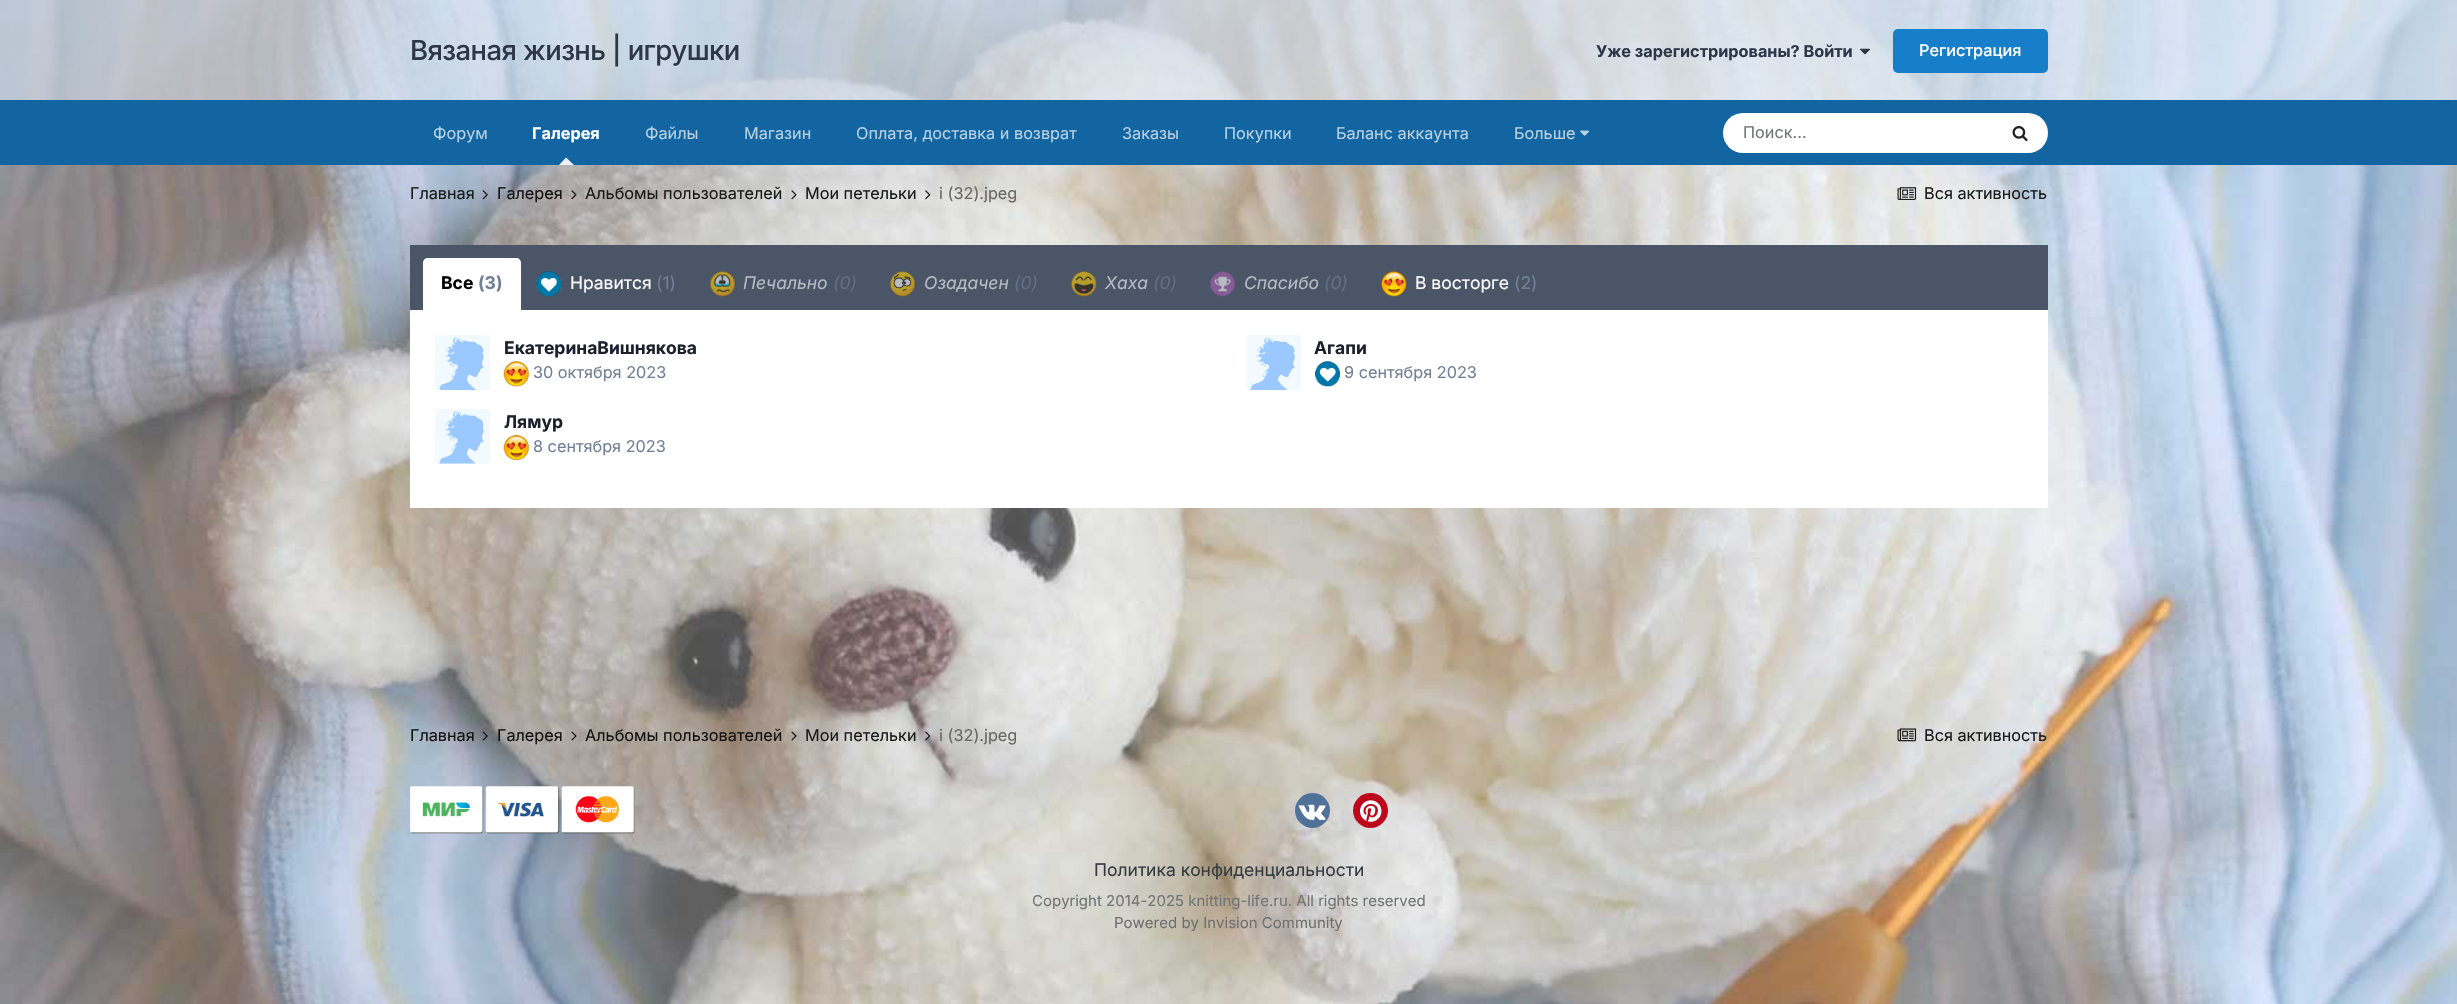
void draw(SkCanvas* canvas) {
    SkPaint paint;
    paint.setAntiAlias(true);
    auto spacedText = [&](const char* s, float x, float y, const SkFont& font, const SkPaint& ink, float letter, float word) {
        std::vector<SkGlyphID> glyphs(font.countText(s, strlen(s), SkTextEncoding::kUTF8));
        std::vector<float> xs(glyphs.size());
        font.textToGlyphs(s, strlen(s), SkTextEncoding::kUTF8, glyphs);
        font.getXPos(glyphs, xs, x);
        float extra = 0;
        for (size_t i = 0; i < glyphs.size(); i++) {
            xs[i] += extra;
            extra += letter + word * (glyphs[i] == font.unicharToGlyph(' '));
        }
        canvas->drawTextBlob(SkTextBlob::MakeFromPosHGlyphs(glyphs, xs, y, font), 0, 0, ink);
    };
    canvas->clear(0xFFFFFFFF);
    canvas->drawImageRect(SkImages::DeferredFromEncodedData(SkData::MakeFromFileName("img1.png")), SkRect::MakeXYWH(0, 0, 2457, 1004), SkSamplingOptions());
    paint.setColor(0x99D9E5F0);
    canvas->drawRect(SkRect::MakeXYWH(0, 0, 2457, 100), paint);
    SkFont font1(fontMgr->matchFamilyStyle("Inter", SkFontStyle(500, SkFontStyle::kNormal_Width, SkFontStyle::kUpright_Slant)), 27.5f);
    font1.setSubpixel(true);
    paint.setColor(0xFF2D3748);
    spacedText("Вязаная жизнь | игрушки", 410, 60, font1, paint, -0.6f, 0);
    SkFont font2(fontMgr->matchFamilyStyle("Inter", SkFontStyle::Bold()), 16.25f);
    font2.setSubpixel(true);
    canvas->drawString("Уже зарегистрированы? Войти", 1596, 57, font2, paint);
    canvas->drawImageRect(SkImages::DeferredFromEncodedData(SkData::MakeFromFileName("img2.png")), SkRect::MakeXYWH(1860, 48, 10, 7), SkSamplingOptions());
    paint.setColor(0xFF177EC9);
    canvas->drawRoundRect(SkRect::MakeXYWH(1893, 29, 155, 44), 5, 5, paint);
    SkFont font3(fontMgr->matchFamilyStyle("Inter", SkFontStyle(500, SkFontStyle::kNormal_Width, SkFontStyle::kUpright_Slant)), 16.25f);
    font3.setSubpixel(true);
    paint.setColor(0xFFFFFFFF);
    canvas->drawString("Регистрация", 1919, 56, font3, paint);
    paint.setColor(0xFF1265A1);
    canvas->drawRect(SkRect::MakeXYWH(0, 100, 2457, 65), paint);
    SkFont font4(fontMgr->matchFamilyStyle("Inter", SkFontStyle::Normal()), 16.25f);
    font4.setSubpixel(true);
    paint.setColor(0xFFB8D1E3);
    canvas->drawString("Форум", 433, 139, font4, paint);
    paint.setColor(0xFFFFFFFF);
    canvas->drawString("Галерея", 532, 139, font2, paint);
    paint.setColor(0xFFEDF0F4);
    canvas->drawPath(SkPathBuilder().moveTo(574, 165).lineTo(559, 165).lineTo(566, 157.5f).close().detach(), paint);
    paint.setColor(0xFFB8D1E3);
    canvas->drawString("Файлы", 645, 139, font4, paint);
    canvas->drawString("Магазин", 744, 139, font4, paint);
    canvas->drawString("Оплата, доставка и возврат", 856, 139, font4, paint);
    canvas->drawString("Заказы", 1122, 139, font4, paint);
    canvas->drawString("Покупки", 1224, 139, font4, paint);
    canvas->drawString("Баланс аккаунта", 1336, 139, font4, paint);
    canvas->drawString("Больше", 1514, 139, font4, paint);
    canvas->drawImageRect(SkImages::DeferredFromEncodedData(SkData::MakeFromFileName("img3.png")), SkRect::MakeXYWH(1580, 130, 10, 6), SkSamplingOptions());
    paint.setColor(0xFFFFFFFF);
    canvas->drawRoundRect(SkRect::MakeXYWH(1723, 113, 325, 40), 20, 20, paint);
    paint.setColor(0xFF727575);
    canvas->drawString("Поиск...", 1743, 138, font4, paint);
    canvas->drawImageRect(SkImages::DeferredFromEncodedData(SkData::MakeFromFileName("img4.png")), SkRect::MakeXYWH(2012, 126, 16, 16), SkSamplingOptions());
    paint.setColor(0xFF181919);
    canvas->drawString("Главная", 410, 199, font4, paint);
    canvas->drawImageRect(SkImages::DeferredFromEncodedData(SkData::MakeFromFileName("img5.png")), SkRect::MakeXYWH(482, 190, 6, 10), SkSamplingOptions());
    paint.setColor(0xFF121212);
    canvas->drawString("Галерея", 497, 199, font4, paint);
    canvas->drawImageRect(SkImages::DeferredFromEncodedData(SkData::MakeFromFileName("img6.png")), SkRect::MakeXYWH(571, 190, 6, 10), SkSamplingOptions());
    paint.setColor(0xFF181919);
    canvas->drawString("Альбомы пользователей", 585, 199, font4, paint);
    canvas->drawImageRect(SkImages::DeferredFromEncodedData(SkData::MakeFromFileName("img7.png")), SkRect::MakeXYWH(791, 190, 6, 10), SkSamplingOptions());
    canvas->drawString("Мои петельки", 805, 199, font4, paint);
    canvas->drawImageRect(SkImages::DeferredFromEncodedData(SkData::MakeFromFileName("img8.png")), SkRect::MakeXYWH(925, 190, 6, 10), SkSamplingOptions());
    canvas->save();
    canvas->clipRect(SkRect::MakeXYWH(939, 186, 79, 19));
    paint.setColor(0xFF676764);
    canvas->drawString("i (32).jpeg", 939, 199, font4, paint);
    canvas->restore();
    canvas->drawImageRect(SkImages::DeferredFromEncodedData(SkData::MakeFromFileName("img9.png")), SkRect::MakeXYWH(1897, 187, 20, 13), SkSamplingOptions());
    paint.setColor(0xFF181919);
    canvas->drawString("Вся активность", 1924, 199, font4, paint);
    paint.setColor(0xFF4A5568);
    canvas->drawRect(SkRect::MakeXYWH(410, 245, 1638, 65), paint);
    paint.setColor(0xFFFFFFFF);
    canvas->drawPath(SkPathBuilder().moveTo(428, 258).lineTo(516, 258).cubicTo(519, 258, 521, 260, 521, 263).lineTo(521, 310).lineTo(423, 310).lineTo(423, 263).cubicTo(423, 260, 425, 258, 428, 258).close().detach(), paint);
    SkFont font5(fontMgr->matchFamilyStyle("Inter", SkFontStyle::Bold()), 17.5f);
    font5.setSubpixel(true);
    paint.setColor(0xFF000000);
    canvas->drawString("Все", 441, 289, font5, paint);
    paint.setColor(0xFF718096);
    canvas->drawString("(3)", 478, 289, font5, paint);
    canvas->drawImageRect(SkImages::DeferredFromEncodedData(SkData::MakeFromFileName("img10.png")), SkRect::MakeXYWH(536, 271, 26, 26), SkSamplingOptions());
    SkFont font6(fontMgr->matchFamilyStyle("Inter", SkFontStyle::Normal()), 17.5f);
    font6.setSubpixel(true);
    paint.setColor(0xFFFFFFFF);
    canvas->drawString("Нравится", 570, 289, font6, paint);
    paint.setColor(0xFF718096);
    canvas->drawString("(1)", 656, 289, font6, paint);
    canvas->drawImageRect(SkImages::DeferredFromEncodedData(SkData::MakeFromFileName("img11.png")), SkRect::MakeXYWH(710, 271, 25, 26), SkSamplingOptions());
    SkFont font7(fontMgr->matchFamilyStyle("Inter", SkFontStyle::Italic()), 17.5f);
    font7.setSubpixel(true);
    paint.setColor(0xFFB7BBC3);
    canvas->drawString("Печально", 743, 289, font7, paint);
    paint.setColor(0xFF616F84);
    canvas->drawString("(0)", 833, 289, font7, paint);
    canvas->drawImageRect(SkImages::DeferredFromEncodedData(SkData::MakeFromFileName("img12.png")), SkRect::MakeXYWH(890, 271, 25, 26), SkSamplingOptions());
    paint.setColor(0xFFB7BBC3);
    canvas->drawString("Озадачен", 924, 289, font7, paint);
    paint.setColor(0xFF616F84);
    canvas->drawString("(0)", 1014, 289, font7, paint);
    canvas->drawImageRect(SkImages::DeferredFromEncodedData(SkData::MakeFromFileName("img13.png")), SkRect::MakeXYWH(1071, 271, 26, 26), SkSamplingOptions());
    paint.setColor(0xFFB7BBC3);
    canvas->drawString("Хаха", 1105, 289, font7, paint);
    paint.setColor(0xFF616F84);
    canvas->drawString("(0)", 1153, 289, font7, paint);
    canvas->drawImageRect(SkImages::DeferredFromEncodedData(SkData::MakeFromFileName("img14.png")), SkRect::MakeXYWH(1210, 271, 25, 26), SkSamplingOptions());
    paint.setColor(0xFFB7BBC3);
    canvas->drawString("Спасибо", 1244, 289, font7, paint);
    paint.setColor(0xFF616F84);
    canvas->drawString("(0)", 1324, 289, font7, paint);
    canvas->drawImageRect(SkImages::DeferredFromEncodedData(SkData::MakeFromFileName("img15.png")), SkRect::MakeXYWH(1381, 271, 26, 26), SkSamplingOptions());
    paint.setColor(0xFFFFFFFF);
    canvas->drawString("В восторге", 1415, 289, font6, paint);
    paint.setColor(0xFF718096);
    canvas->drawString("(2)", 1514, 289, font6, paint);
    paint.setColor(0xFFFFFFFF);
    canvas->drawRect(SkRect::MakeXYWH(410, 310, 1638, 198), paint);
    canvas->drawImageRect(SkImages::DeferredFromEncodedData(SkData::MakeFromFileName("img16.png")), SkRect::MakeXYWH(435, 335, 55, 55), SkSamplingOptions());
    paint.setColor(0xFF1A202C);
    canvas->drawString("ЕкатеринаВишнякова", 504, 354, font5, paint);
    canvas->drawImageRect(SkImages::DeferredFromEncodedData(SkData::MakeFromFileName("img17.png")), SkRect::MakeXYWH(503, 361, 26, 26), SkSamplingOptions());
    paint.setColor(0xFF718096);
    canvas->drawString("30 октября 2023", 533, 378, font4, paint);
    canvas->drawImageRect(SkImages::DeferredFromEncodedData(SkData::MakeFromFileName("img18.png")), SkRect::MakeXYWH(1246, 335, 55, 55), SkSamplingOptions());
    paint.setColor(0xFF1A202C);
    canvas->drawString("Агапи", 1314, 354, font5, paint);
    canvas->drawImageRect(SkImages::DeferredFromEncodedData(SkData::MakeFromFileName("img19.png")), SkRect::MakeXYWH(1315, 361, 25, 26), SkSamplingOptions());
    paint.setColor(0xFF718096);
    canvas->drawString("9 сентября 2023", 1344, 378, font4, paint);
    canvas->drawImageRect(SkImages::DeferredFromEncodedData(SkData::MakeFromFileName("img20.png")), SkRect::MakeXYWH(435, 409, 55, 55), SkSamplingOptions());
    paint.setColor(0xFF1A202C);
    canvas->drawString("Лямур", 504, 428, font5, paint);
    canvas->drawImageRect(SkImages::DeferredFromEncodedData(SkData::MakeFromFileName("img21.png")), SkRect::MakeXYWH(503, 435, 26, 25), SkSamplingOptions());
    paint.setColor(0xFF718096);
    canvas->drawString("8 сентября 2023", 533, 452, font4, paint);
    paint.setColor(0xFF121212);
    canvas->drawString("Главная", 410, 741, font4, paint);
    canvas->drawImageRect(SkImages::DeferredFromEncodedData(SkData::MakeFromFileName("img22.png")), SkRect::MakeXYWH(482, 731, 6, 10), SkSamplingOptions());
    canvas->drawString("Галерея", 497, 741, font4, paint);
    canvas->drawImageRect(SkImages::DeferredFromEncodedData(SkData::MakeFromFileName("img23.png")), SkRect::MakeXYWH(571, 731, 6, 10), SkSamplingOptions());
    canvas->drawString("Альбомы пользователей", 585, 741, font4, paint);
    canvas->drawImageRect(SkImages::DeferredFromEncodedData(SkData::MakeFromFileName("img24.png")), SkRect::MakeXYWH(791, 731, 6, 10), SkSamplingOptions());
    paint.setColor(0xFF181919);
    canvas->drawString("Мои петельки", 805, 741, font4, paint);
    canvas->drawImageRect(SkImages::DeferredFromEncodedData(SkData::MakeFromFileName("img25.png")), SkRect::MakeXYWH(925, 731, 6, 10), SkSamplingOptions());
    canvas->save();
    canvas->clipRect(SkRect::MakeXYWH(939, 728, 79, 18));
    paint.setColor(0xFF676764);
    canvas->drawString("i (32).jpeg", 939, 741, font4, paint);
    canvas->restore();
    canvas->drawImageRect(SkImages::DeferredFromEncodedData(SkData::MakeFromFileName("img26.png")), SkRect::MakeXYWH(1897, 728, 20, 14), SkSamplingOptions());
    paint.setColor(0xFF181919);
    canvas->drawString("Вся активность", 1924, 741, font4, paint);
    canvas->drawImageRect(SkImages::DeferredFromEncodedData(SkData::MakeFromFileName("img27.png")), SkRect::MakeXYWH(410, 786, 225, 48), SkSamplingOptions());
    paint.setColor(0xFF507299);
    canvas->drawCircle(1312.5f, 810.5f, 17.5f, paint);
    canvas->drawImageRect(SkImages::DeferredFromEncodedData(SkData::MakeFromFileName("img28.png")), SkRect::MakeXYWH(1298, 804, 28, 16), SkSamplingOptions());
    paint.setColor(0xFFBD081C);
    canvas->drawCircle(1370.5f, 810.5f, 17.5f, paint);
    canvas->drawImageRect(SkImages::DeferredFromEncodedData(SkData::MakeFromFileName("img29.png")), SkRect::MakeXYWH(1360, 800, 22, 22), SkSamplingOptions());
    paint.setColor(0xFF353C41);
    canvas->drawString("Политика конфиденциальности", 1094, 876, font6, paint);
    SkFont font8(fontMgr->matchFamilyStyle("Inter", SkFontStyle::Normal()), 15);
    font8.setSubpixel(true);
    paint.setColor(0xFF727575);
    canvas->drawString("Copyright 2014-2025 knitting-life.ru. All rights reserved", 1032, 906, font8, paint);
    paint.setColor(0xFF6F706F);
    canvas->drawString("Powered by Invision Community", 1114, 928, font8, paint);
}
